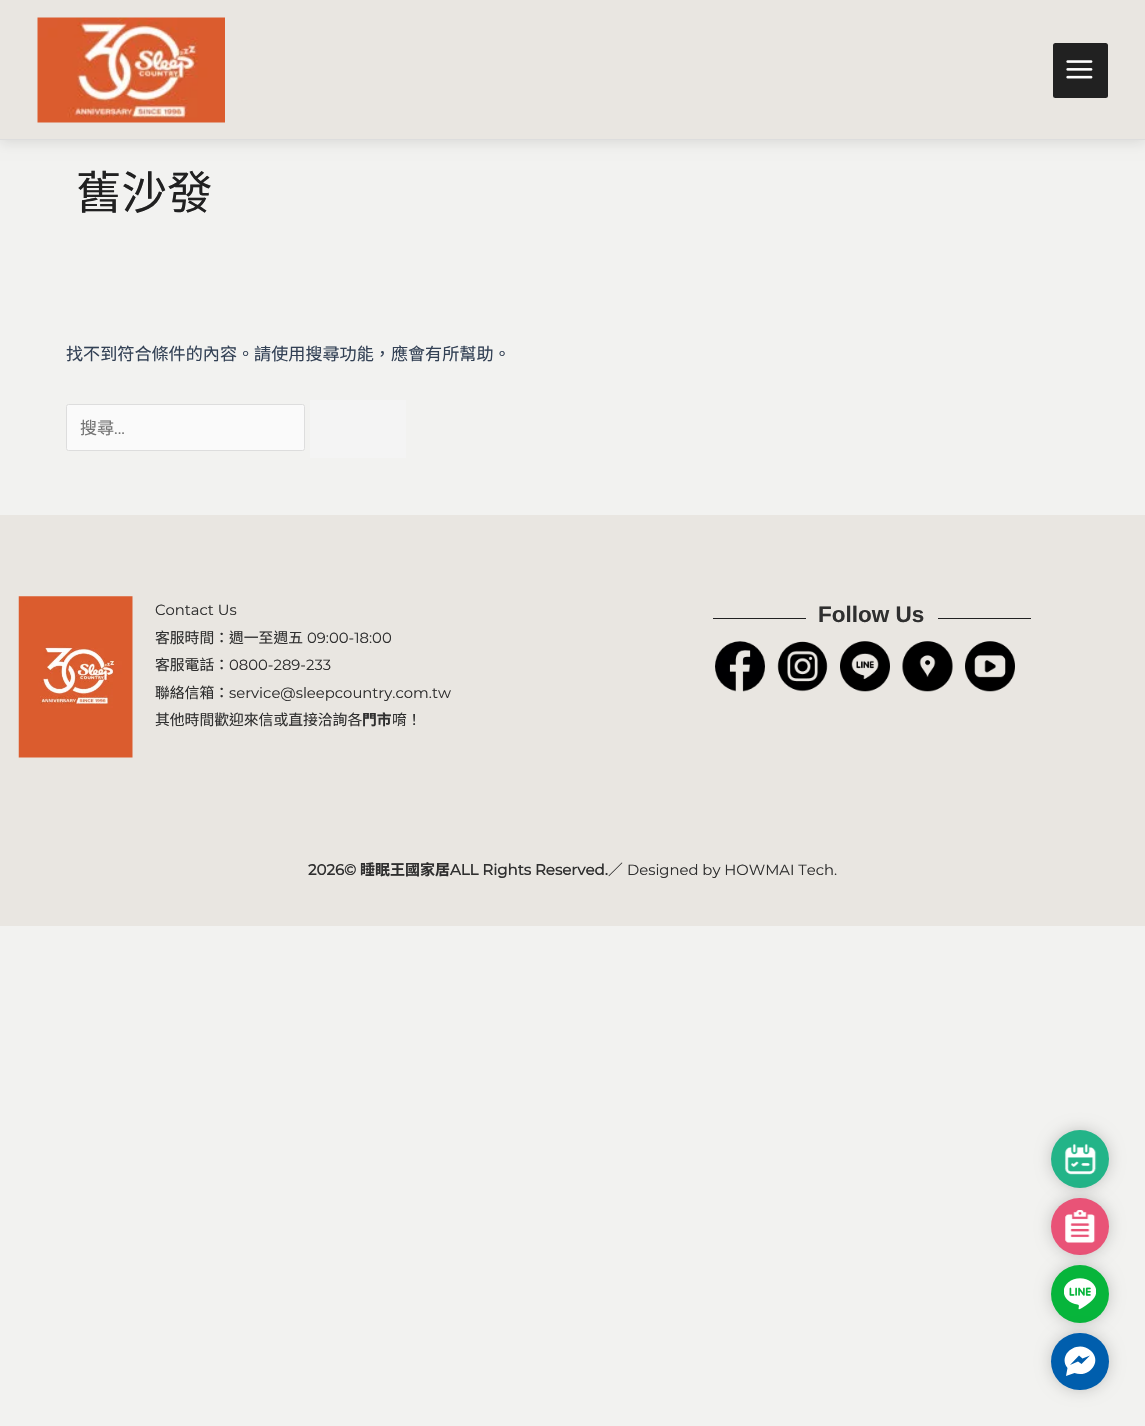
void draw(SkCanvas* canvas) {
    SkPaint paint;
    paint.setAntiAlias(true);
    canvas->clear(0xFFF2F2F0);
    paint.setColor(0x1A000000);
    paint.setMaskFilter(SkMaskFilter::MakeBlur(kNormal_SkBlurStyle, 6));
    canvas->drawRect(SkRect::MakeXYWH(0, 3, 1145, 140), paint);
    paint.setMaskFilter(nullptr);
    paint.setColor(0xFFE9E6E1);
    canvas->drawRect(SkRect::MakeXYWH(0, 0, 1145, 139), paint);
    paint.setColor(0xFFDDDDDD);
    canvas->drawRect(SkRect::MakeXYWH(0, 139, 1145, 1), paint);
    canvas->drawImageRect(SkImages::DeferredFromEncodedData(SkData::MakeFromFileName("img1.png")), SkRect::MakeXYWH(37, 17, 188, 106), SkSamplingOptions());
    paint.setColor(0xFF212121);
    canvas->drawRoundRect(SkRect::MakeXYWH(1053, 43, 55, 55), 2.5f, 2.5f, paint);
    canvas->drawImageRect(SkImages::DeferredFromEncodedData(SkData::MakeFromFileName("img2.png")), SkRect::MakeXYWH(1066, 60, 27, 19), SkSamplingOptions());
    SkFont font1(fontMgr->matchFamilyStyle("Noto Sans CJK TC", SkFontStyle::Normal()), 45.5f);
    font1.setSubpixel(true);
    canvas->drawString("舊沙發", 76, 209, font1, paint);
    SkFont font2(fontMgr->matchFamilyStyle("Noto Sans TC", SkFontStyle::Normal()), 17.1f);
    font2.setSubpixel(true);
    paint.setColor(0xFF334155);
    canvas->drawString("找不到符合條件的內容。請使用搜尋功能，應會有所幫助。", 66, 360, font2, paint);
    paint.setColor(0xFFFAFAFA);
    canvas->drawRoundRect(SkRect::MakeXYWH(66.5f, 404.5f, 238, 46), 2, 2, paint);
    paint.setStyle(SkPaint::kStroke_Style);
    paint.setStrokeWidth(1);
    paint.setColor(0xFFDDDDDD);
    canvas->drawRoundRect(SkRect::MakeXYWH(66.5f, 404.5f, 238, 46), 2, 2, paint);
    paint.setStyle(SkPaint::kFill_Style);
    paint.setColor(0xFF757575);
    canvas->drawString("搜尋", 80, 434, font2, paint);
    SkFont font3(fontMgr->matchFamilyStyle("Montserrat", SkFontStyle(100, SkFontStyle::kNormal_Width, SkFontStyle::kUpright_Slant)), 17.1f);
    font3.setSubpixel(true);
    canvas->drawString("...", 114, 434, font3, paint);
    paint.setColor(0xFFF4F4F4);
    canvas->drawRect(SkRect::MakeXYWH(310, 400, 96, 58), paint);
    paint.setColor(0xFFE9E6E1);
    canvas->drawRect(SkRect::MakeXYWH(0, 515, 1145, 411), paint);
    canvas->drawImageRect(SkImages::DeferredFromEncodedData(SkData::MakeFromFileName("img3.png")), SkRect::MakeXYWH(18, 596, 115, 162), SkSamplingOptions());
    SkFont font4(fontMgr->matchFamilyStyle("Montserrat", SkFontStyle(100, SkFontStyle::kNormal_Width, SkFontStyle::kUpright_Slant)), 14.8f);
    font4.setSubpixel(true);
    paint.setColor(0xFF2F2F2F);
    canvas->drawString("Contact Us", 155, 615, font4, paint);
    SkFont font5(fontMgr->matchFamilyStyle("Noto Sans TC", SkFontStyle::Normal()), 14.8f);
    font5.setSubpixel(true);
    canvas->drawString("客服時間：週一至週五", 155, 643, font5, paint);
    canvas->drawString("09:00-18:00", 307, 643, font4, paint);
    canvas->drawString("客服電話：", 155, 670, font5, paint);
    canvas->drawString("0800-289-233", 229, 670, font4, paint);
    canvas->drawString("聯絡信箱：", 155, 698, font5, paint);
    canvas->drawString("service@sleepcountry.com.tw", 229, 698, font4, paint);
    canvas->drawString("其他時間歡迎來信或直接洽詢各", 155, 725, font5, paint);
    SkFont font6(fontMgr->matchFamilyStyle("Noto Sans TC", SkFontStyle::Bold()), 14.8f);
    font6.setSubpixel(true);
    canvas->drawString("門市", 362, 725, font6, paint);
    canvas->drawString("唷！", 392, 725, font5, paint);
    paint.setColor(0xFF212121);
    canvas->drawRect(SkRect::MakeXYWH(713, 618, 93, 1), paint);
    SkFont font7(fontMgr->matchFamilyStyle("Liberation Sans", SkFontStyle::Bold()), 22.5f);
    font7.setSubpixel(true);
    paint.setColor(0xFF2F2F2F);
    canvas->drawString("Follow Us", 818, 622, font7, paint);
    paint.setColor(0xFF212121);
    canvas->drawRect(SkRect::MakeXYWH(938, 618, 93, 1), paint);
    canvas->drawImageRect(SkImages::DeferredFromEncodedData(SkData::MakeFromFileName("img4.png")), SkRect::MakeXYWH(715, 641, 50, 51), SkSamplingOptions());
    canvas->drawImageRect(SkImages::DeferredFromEncodedData(SkData::MakeFromFileName("img5.png")), SkRect::MakeXYWH(777, 641, 51, 51), SkSamplingOptions());
    canvas->drawImageRect(SkImages::DeferredFromEncodedData(SkData::MakeFromFileName("img6.png")), SkRect::MakeXYWH(840, 641, 50, 51), SkSamplingOptions());
    canvas->drawImageRect(SkImages::DeferredFromEncodedData(SkData::MakeFromFileName("img7.png")), SkRect::MakeXYWH(902, 641, 51, 51), SkSamplingOptions());
    canvas->drawImageRect(SkImages::DeferredFromEncodedData(SkData::MakeFromFileName("img8.png")), SkRect::MakeXYWH(965, 641, 50, 51), SkSamplingOptions());
    SkFont font8(fontMgr->matchFamilyStyle("Montserrat", SkFontStyle::Bold()), 15);
    font8.setSubpixel(true);
    paint.setColor(0xFF2F2F2F);
    canvas->drawString("2026©", 308, 875, font8, paint);
    SkFont font9(fontMgr->matchFamilyStyle("Noto Sans TC", SkFontStyle::Bold()), 15);
    font9.setSubpixel(true);
    canvas->drawString("睡眠王國家居", 360, 875, font9, paint);
    canvas->drawString("ALL Rights Reserved.", 450, 875, font8, paint);
    canvas->drawString("／", 608, 875, font5, paint);
    canvas->drawString("Designed by HOWMAI Tech.", 627, 875, font4, paint);
    paint.setColor(0x33000000);
    paint.setMaskFilter(SkMaskFilter::MakeBlur(kNormal_SkBlurStyle, 7.5f));
    canvas->drawRoundRect(SkRect::MakeXYWH(1051, 1130, 58, 58), 29, 29, paint);
    paint.setMaskFilter(nullptr);
    paint.setColor(0xFF23B488);
    canvas->drawCircle(1080, 1159, 29, paint);
    canvas->drawImageRect(SkImages::DeferredFromEncodedData(SkData::MakeFromFileName("img9.png")), SkRect::MakeXYWH(1064, 1144, 33, 31), SkSamplingOptions());
    paint.setColor(0x33000000);
    paint.setMaskFilter(SkMaskFilter::MakeBlur(kNormal_SkBlurStyle, 7.5f));
    canvas->drawRoundRect(SkRect::MakeXYWH(1051, 1198, 58, 57), 28.5f, 28.5f, paint);
    paint.setMaskFilter(nullptr);
    paint.setColor(0xFFE95377);
    canvas->drawRoundRect(SkRect::MakeXYWH(1051, 1198, 58, 57), 28.5f, 28.5f, paint);
    canvas->drawImageRect(SkImages::DeferredFromEncodedData(SkData::MakeFromFileName("img10.png")), SkRect::MakeXYWH(1065, 1210, 31, 33), SkSamplingOptions());
    paint.setColor(0x33000000);
    paint.setMaskFilter(SkMaskFilter::MakeBlur(kNormal_SkBlurStyle, 7.5f));
    canvas->drawRoundRect(SkRect::MakeXYWH(1051, 1265, 58, 58), 29, 29, paint);
    paint.setMaskFilter(nullptr);
    paint.setColor(0xFF07B53B);
    canvas->drawCircle(1080, 1294, 29, paint);
    canvas->drawImageRect(SkImages::DeferredFromEncodedData(SkData::MakeFromFileName("img11.png")), SkRect::MakeXYWH(1064, 1278, 32, 32), SkSamplingOptions());
    paint.setColor(0x33000000);
    paint.setMaskFilter(SkMaskFilter::MakeBlur(kNormal_SkBlurStyle, 7.5f));
    canvas->drawRoundRect(SkRect::MakeXYWH(1051, 1333, 58, 57), 28.5f, 28.5f, paint);
    paint.setMaskFilter(nullptr);
    paint.setColor(0xFF005EAD);
    canvas->drawRoundRect(SkRect::MakeXYWH(1051, 1333, 58, 57), 28.5f, 28.5f, paint);
    paint.setColor(0xFFFFFFFF);
    canvas->drawPath(SkPathBuilder().moveTo(1090.5f, 1350.5f).cubicTo(1078, 1339, 1057, 1354, 1067.5f, 1368).lineTo(1066, 1376).lineTo(1074.5f, 1373).cubicTo(1089, 1378.5f, 1103, 1361.5f, 1090.5f, 1350.5f).close().moveTo(1081.5f, 1364).lineTo(1078, 1361.5f).lineTo(1070, 1365).lineTo(1079, 1355.5f).lineTo(1082.5f, 1358.5f).lineTo(1090, 1355.5f).close().detach(), paint);
}
